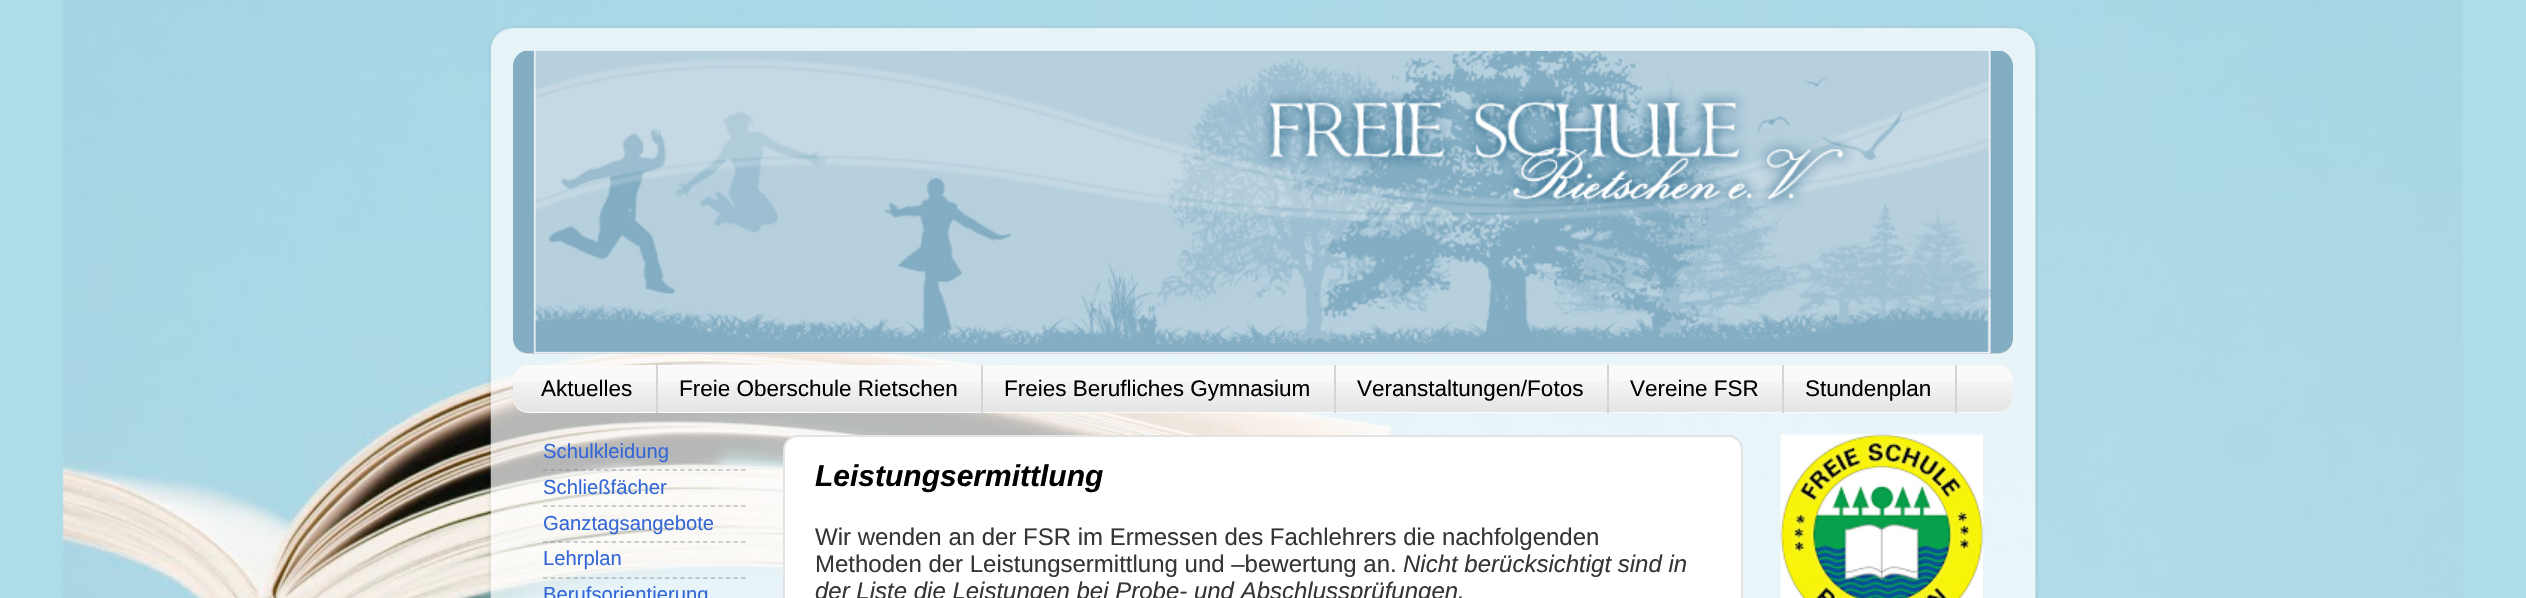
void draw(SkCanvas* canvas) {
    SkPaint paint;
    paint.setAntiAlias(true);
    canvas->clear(0xFFAEDCE9);
    canvas->drawImageRect(SkImages::DeferredFromEncodedData(SkData::MakeFromFileName("img1.png")), SkRect::MakeXYWH(62, 0, 2401, 598), SkSamplingOptions());
    canvas->save();
    canvas->clipPath(SkPathBuilder(SkPathFillType::kEvenOdd).moveTo(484, 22).lineTo(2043, 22).lineTo(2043, 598).lineTo(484, 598).close().moveTo(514, 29).lineTo(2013, 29).cubicTo(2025.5f, 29, 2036, 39.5f, 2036, 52).lineTo(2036, 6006).cubicTo(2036, 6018.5f, 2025.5f, 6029, 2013, 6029).lineTo(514, 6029).cubicTo(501.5f, 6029, 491, 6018.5f, 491, 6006).lineTo(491, 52).cubicTo(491, 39.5f, 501.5f, 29, 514, 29).close().detach(), true);
    paint.setColor(0x26000000);
    paint.setMaskFilter(SkMaskFilter::MakeBlur(kNormal_SkBlurStyle, 2));
    canvas->drawRoundRect(SkRect::MakeXYWH(491, 29, 1545, 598), 23, 23, paint);
    paint.setMaskFilter(nullptr);
    canvas->restore();
    canvas->drawImageRect(SkImages::DeferredFromEncodedData(SkData::MakeFromFileName("img2.png")), SkRect::MakeXYWH(490, 28, 1546, 570), SkSamplingOptions());
    paint.setColor(0xFFD4D4D4);
    canvas->drawRoundRect(SkRect::MakeXYWH(513, 51, 1500, 303), 15, 15, paint);
    canvas->drawImageRect(SkImages::DeferredFromEncodedData(SkData::MakeFromFileName("img3.png")), SkRect::MakeXYWH(513, 51, 1500, 15), SkSamplingOptions());
    canvas->drawImageRect(SkImages::DeferredFromEncodedData(SkData::MakeFromFileName("img4.png")), SkRect::MakeXYWH(513, 50, 1500, 304), SkSamplingOptions());
    paint.setColor(0xFFFAFAFA);
    canvas->drawRoundRect(SkRect::MakeXYWH(513, 365, 1500, 48), 15, 15, paint);
    canvas->drawImageRect(SkImages::DeferredFromEncodedData(SkData::MakeFromFileName("img5.png")), SkRect::MakeXYWH(513, 381, 1500, 31), SkSamplingOptions());
    paint.setColor(0xFFD4D4D4);
    canvas->drawRect(SkRect::MakeXYWH(656, 365, 2, 48), paint);
    SkFont font1(fontMgr->matchFamilyStyle("Liberation Sans", SkFontStyle::Normal()), 22.5f);
    font1.setSubpixel(true);
    paint.setColor(0xFF000000);
    canvas->drawString("Aktuelles", 541, 396, font1, paint);
    paint.setColor(0xFFD4D4D4);
    canvas->drawRect(SkRect::MakeXYWH(981, 365, 2, 48), paint);
    paint.setColor(0xFF000000);
    canvas->drawString("Freie Oberschule Rietschen", 679, 396, font1, paint);
    paint.setColor(0xFFD4D4D4);
    canvas->drawRect(SkRect::MakeXYWH(1334, 365, 2, 48), paint);
    paint.setColor(0xFF000000);
    canvas->drawString("Freies Berufliches Gymnasium", 1004, 396, font1, paint);
    paint.setColor(0xFFD4D4D4);
    canvas->drawRect(SkRect::MakeXYWH(1607, 365, 2, 48), paint);
    paint.setColor(0xFF000000);
    canvas->drawString("Veranstaltungen/Fotos", 1357, 396, font1, paint);
    paint.setColor(0xFFD4D4D4);
    canvas->drawRect(SkRect::MakeXYWH(1782, 365, 2, 48), paint);
    paint.setColor(0xFF000000);
    canvas->drawString("Vereine FSR", 1630, 396, font1, paint);
    paint.setColor(0xFFD4D4D4);
    canvas->drawRect(SkRect::MakeXYWH(1955, 365, 2, 48), paint);
    paint.setColor(0xFF000000);
    canvas->drawString("Stundenplan", 1805, 396, font1, paint);
    SkFont font2(fontMgr->matchFamilyStyle("Liberation Sans", SkFontStyle::Normal()), 20.25f);
    font2.setSubpixel(true);
    paint.setColor(0xFF3367D6);
    canvas->drawString("Schulkleidung", 543, 458, font2, paint);
    paint.setStyle(SkPaint::kStroke_Style);
    paint.setStrokeWidth(1.5f);
    paint.setColor(0x80808080);
    paint.setPathEffect(SkDashPathEffect::Make({{4.5f, 3.12f}}, 0));
    canvas->drawPath(SkPathBuilder().moveTo(543, 470).lineTo(745.5f, 470).detach(), paint);
    paint.setPathEffect(nullptr);
    paint.setStyle(SkPaint::kFill_Style);
    paint.setColor(0xFF3367D6);
    canvas->drawString("Schließfächer", 543, 494, font2, paint);
    paint.setStyle(SkPaint::kStroke_Style);
    paint.setColor(0x80808080);
    paint.setPathEffect(SkDashPathEffect::Make({{4.5f, 3.12f}}, 0));
    canvas->drawPath(SkPathBuilder().moveTo(543, 506).lineTo(745.5f, 506).detach(), paint);
    paint.setPathEffect(nullptr);
    paint.setStyle(SkPaint::kFill_Style);
    paint.setColor(0xFF3367D6);
    canvas->drawString("Ganztagsangebote", 543, 530, font2, paint);
    paint.setStyle(SkPaint::kStroke_Style);
    paint.setColor(0x80808080);
    paint.setPathEffect(SkDashPathEffect::Make({{4.5f, 3.12f}}, 0));
    canvas->drawPath(SkPathBuilder().moveTo(543, 542).lineTo(745.5f, 542).detach(), paint);
    paint.setPathEffect(nullptr);
    paint.setStyle(SkPaint::kFill_Style);
    paint.setColor(0xFF3367D6);
    canvas->drawString("Lehrplan", 543, 565, font2, paint);
    paint.setStyle(SkPaint::kStroke_Style);
    paint.setColor(0x80808080);
    paint.setPathEffect(SkDashPathEffect::Make({{4.5f, 3.12f}}, 0));
    canvas->drawPath(SkPathBuilder().moveTo(543, 578).lineTo(745.5f, 578).detach(), paint);
    paint.setPathEffect(nullptr);
    paint.setStyle(SkPaint::kFill_Style);
    paint.setColor(0xFF3367D6);
    canvas->drawString("Berufsorientierung", 543, 601, font2, paint);
    paint.setColor(0xFFFFFFFF);
    canvas->drawRoundRect(SkRect::MakeXYWH(784, 436, 958, 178), 14, 14, paint);
    paint.setStyle(SkPaint::kStroke_Style);
    paint.setStrokeWidth(2);
    paint.setColor(0xFFE3E3E3);
    canvas->drawRoundRect(SkRect::MakeXYWH(784, 436, 958, 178), 14, 14, paint);
    SkFont font3(fontMgr->matchFamilyStyle("Liberation Sans", SkFontStyle::BoldItalic()), 30);
    font3.setSubpixel(true);
    paint.setStyle(SkPaint::kFill_Style);
    paint.setColor(0xFF000000);
    canvas->drawString("Leistungsermittlung", 815, 486, font3, paint);
    SkFont font4(fontMgr->matchFamilyStyle("Liberation Sans", SkFontStyle::Normal()), 24);
    font4.setSubpixel(true);
    paint.setColor(0xFF353535);
    canvas->drawString("Wir wenden an der FSR im Ermessen des Fachlehrers die nachfolgenden", 815, 545, font4, paint);
    canvas->drawString("Methoden der Leistungsermittlung und –bewertung an.", 815, 572, font4, paint);
    SkFont font5(fontMgr->matchFamilyStyle("Liberation Sans", SkFontStyle::Italic()), 24);
    font5.setSubpixel(true);
    canvas->drawString("Nicht berücksichtigt sind in", 1403, 572, font5, paint);
    canvas->drawString("der Liste die Leistungen bei Probe- und Abschlussprüfungen.", 815, 599, font5, paint);
    canvas->drawImageRect(SkImages::DeferredFromEncodedData(SkData::MakeFromFileName("img6.png")), SkRect::MakeXYWH(1780, 434, 203, 164), SkSamplingOptions());
}
